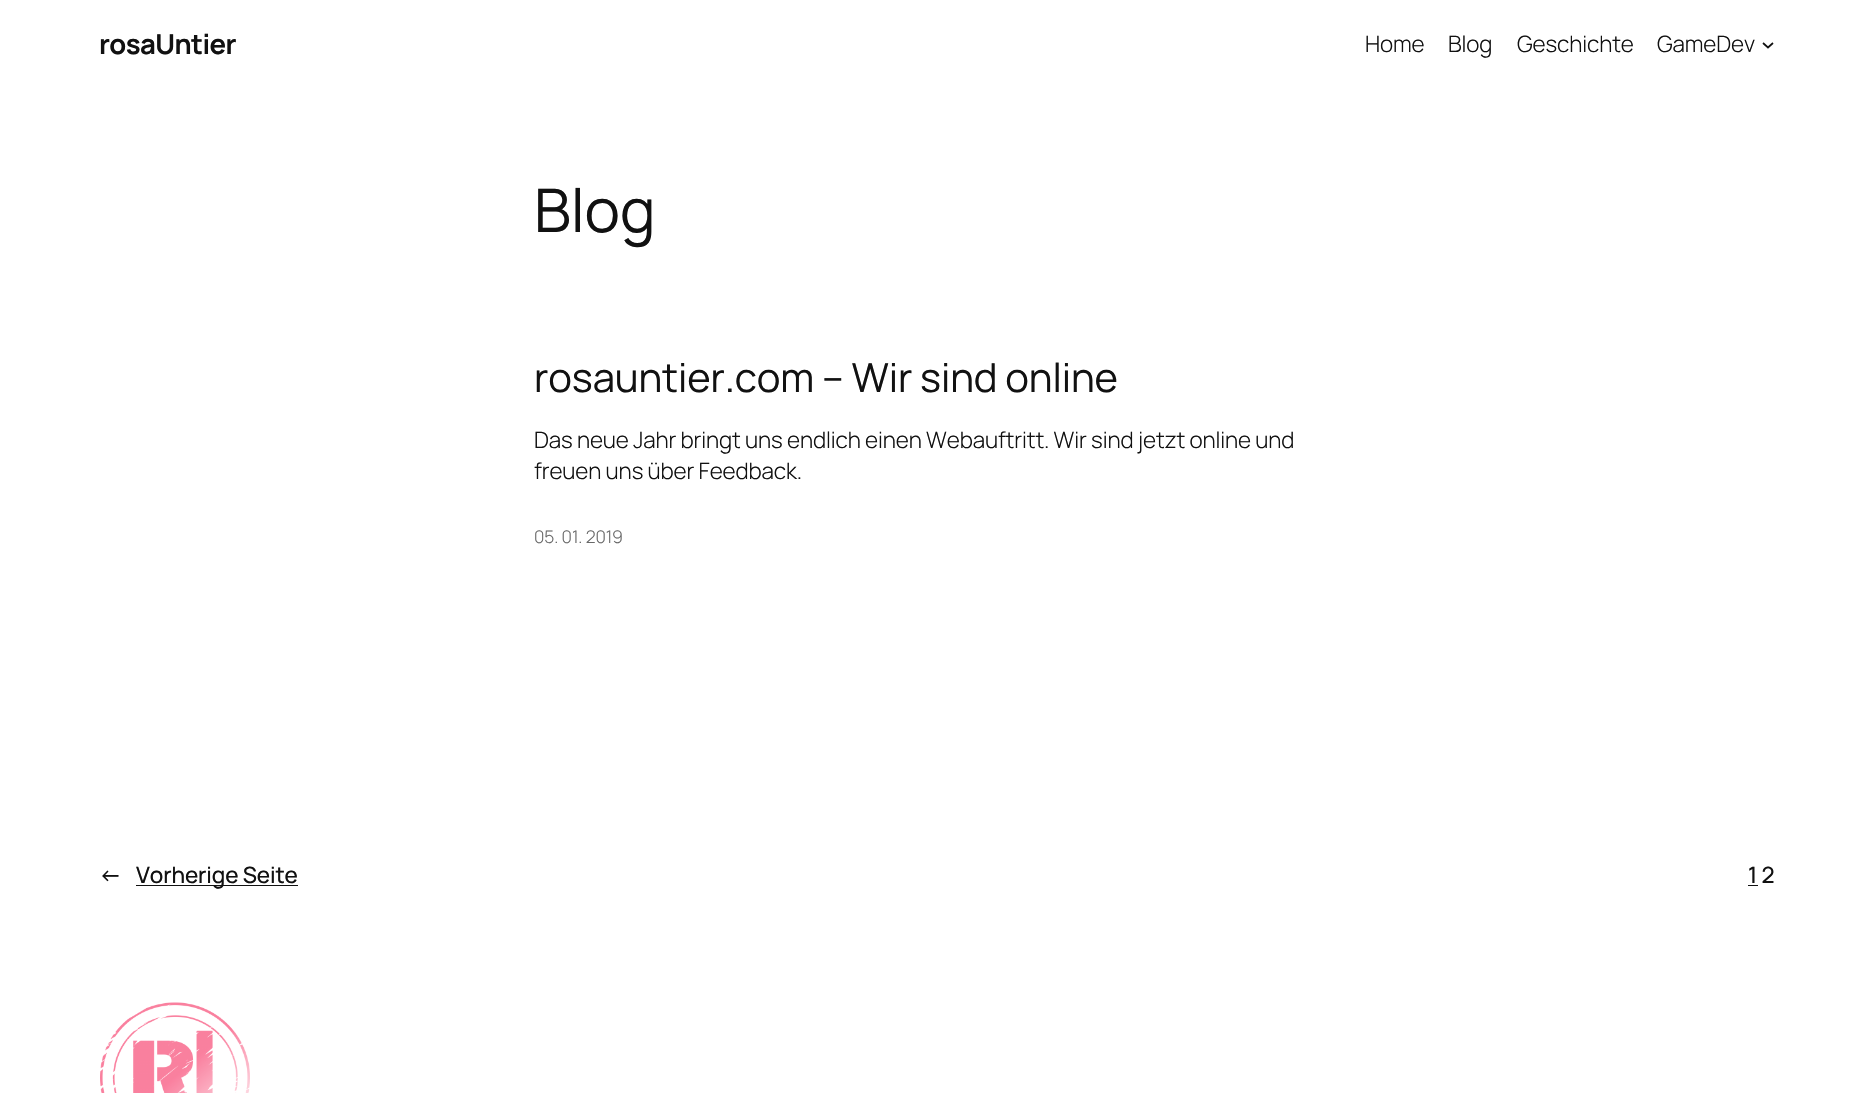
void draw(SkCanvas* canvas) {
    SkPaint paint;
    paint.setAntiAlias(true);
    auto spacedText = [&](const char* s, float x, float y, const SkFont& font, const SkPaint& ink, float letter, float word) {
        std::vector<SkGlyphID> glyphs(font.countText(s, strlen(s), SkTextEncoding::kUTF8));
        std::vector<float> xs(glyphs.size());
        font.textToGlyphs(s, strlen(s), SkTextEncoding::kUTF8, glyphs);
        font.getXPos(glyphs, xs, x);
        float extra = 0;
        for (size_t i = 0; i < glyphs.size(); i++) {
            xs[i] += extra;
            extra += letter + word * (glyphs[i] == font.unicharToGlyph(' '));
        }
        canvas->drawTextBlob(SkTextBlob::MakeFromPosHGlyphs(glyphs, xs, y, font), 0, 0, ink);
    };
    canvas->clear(0xFFFFFFFF);
    SkFont font1(fontMgr->matchFamilyStyle("Manrope", SkFontStyle::Bold()), 27.5f);
    font1.setSubpixel(true);
    paint.setColor(0xFF111111);
    spacedText("rosaUntier", 99, 54, font1, paint, -0.6f, 0);
    SkFont font2(fontMgr->matchFamilyStyle("Manrope", SkFontStyle(300, SkFontStyle::kNormal_Width, SkFontStyle::kUpright_Slant)), 22.5f);
    font2.setSubpixel(true);
    spacedText("Home", 1365, 52, font2, paint, -0.12f, 0);
    spacedText("Blog", 1448, 52, font2, paint, -0.12f, 0);
    spacedText("Geschichte", 1517, 52, font2, paint, -0.12f, 0);
    spacedText("GameDev", 1657, 52, font2, paint, -0.12f, 0);
    paint.setStyle(SkPaint::kStroke_Style);
    paint.setStrokeWidth(1.7f);
    canvas->drawPath(SkPathBuilder().moveTo(1763, 43).lineTo(1768, 47.5f).lineTo(1773, 43).detach(), paint);
    SkFont font3(fontMgr->matchFamilyStyle("Manrope", SkFontStyle::Normal()), 60);
    font3.setSubpixel(true);
    paint.setStyle(SkPaint::kFill_Style);
    spacedText("Blog", 534, 232, font3, paint, -0.12f, 0);
    SkFont font4(fontMgr->matchFamilyStyle("Manrope", SkFontStyle::Normal()), 40);
    font4.setSubpixel(true);
    spacedText("rosauntier.com – Wir sind online", 534, 392, font4, paint, -0.12f, 0);
    spacedText("Das neue Jahr bringt uns endlich einen Webauftritt. Wir sind jetzt online und", 534, 448, font2, paint, -0.12f, 0);
    spacedText("freuen uns über Feedback.", 534, 479, font2, paint, -0.12f, 0);
    SkFont font5(fontMgr->matchFamilyStyle("Manrope", SkFontStyle(300, SkFontStyle::kNormal_Width, SkFontStyle::kUpright_Slant)), 17.5f);
    font5.setSubpixel(true);
    paint.setColor(0xFF686868);
    spacedText("05. 01. 2019", 534, 543, font5, paint, -0.12f, 0);
    SkFont font6(fontMgr->matchFamilyStyle("Manrope", SkFontStyle(500, SkFontStyle::kNormal_Width, SkFontStyle::kUpright_Slant)), 22.5f);
    font6.setSubpixel(true);
    paint.setColor(0xFF111111);
    spacedText("←", 99, 883, font6, paint, -0.12f, 0);
    canvas->drawRect(SkRect::MakeXYWH(136, 885, 162, 1), paint);
    spacedText("Vorherige Seite", 136, 883, font6, paint, -0.12f, 0);
    spacedText("1 2", 1748, 883, font6, paint, -0.12f, 0);
    canvas->drawRect(SkRect::MakeXYWH(1748, 885, 10, 1), paint);
    canvas->drawImageRect(SkImages::DeferredFromEncodedData(SkData::MakeFromFileName("img1.png")), SkRect::MakeXYWH(100, 1002, 150, 91), SkSamplingOptions());
}
